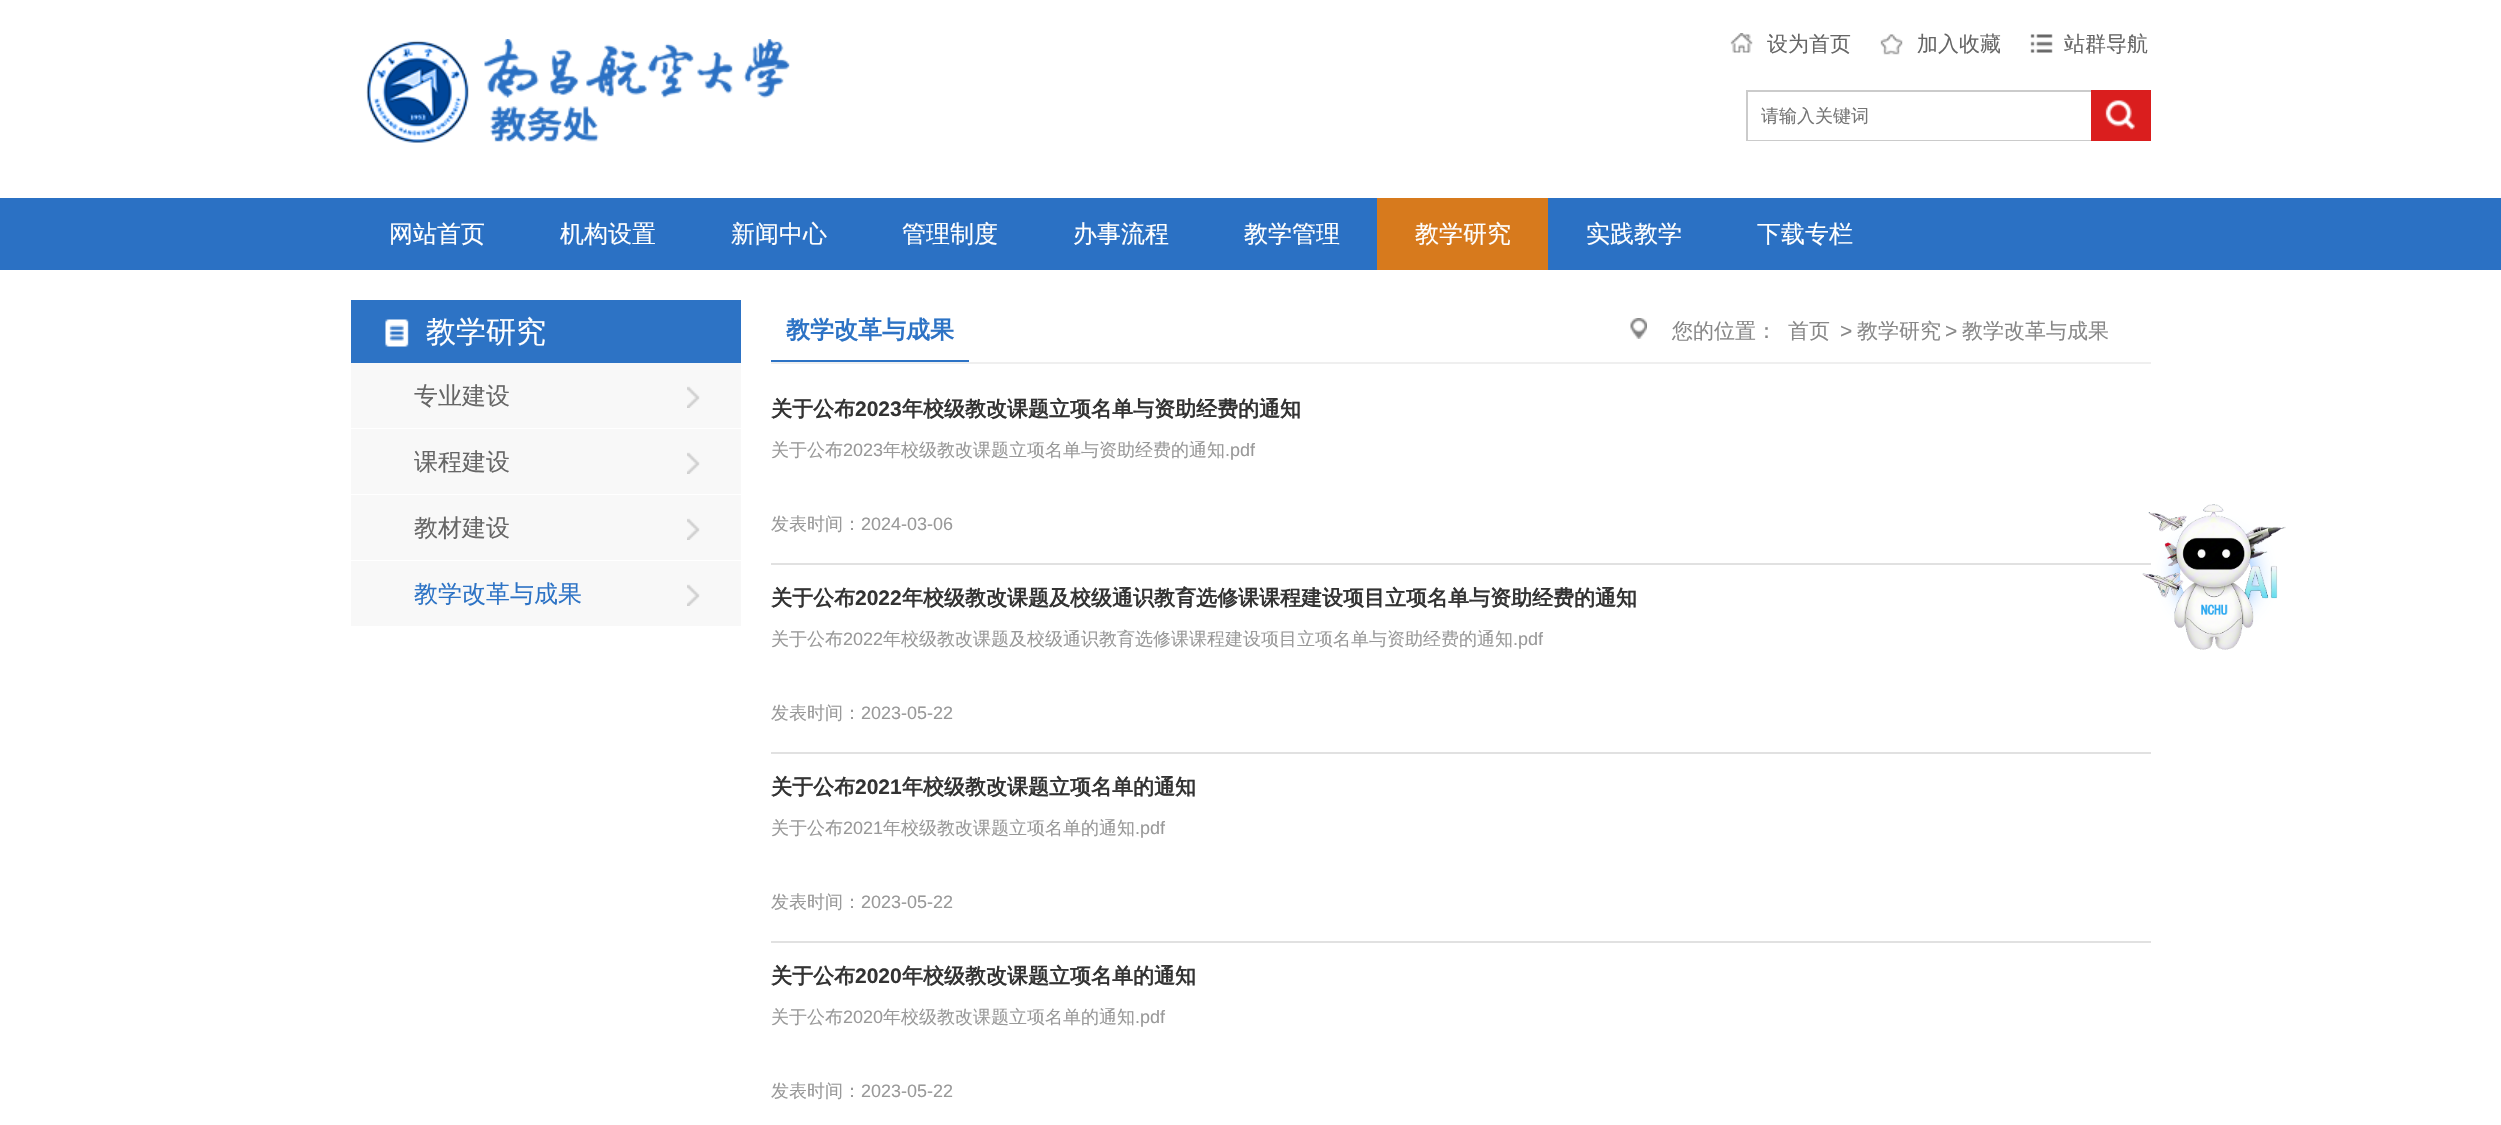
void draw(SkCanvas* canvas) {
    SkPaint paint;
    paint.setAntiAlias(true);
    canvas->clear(0xFFFFFFFF);
    canvas->drawImageRect(SkImages::DeferredFromEncodedData(SkData::MakeFromFileName("img1.png")), SkRect::MakeXYWH(366, 39, 424, 104), SkSamplingOptions());
    canvas->drawImageRect(SkImages::DeferredFromEncodedData(SkData::MakeFromFileName("img2.png")), SkRect::MakeXYWH(1730, 33, 23, 20), SkSamplingOptions());
    SkFont font1(fontMgr->matchFamilyStyle("WenQuanYi Zen Hei", SkFontStyle(500, SkFontStyle::kNormal_Width, SkFontStyle::kUpright_Slant)), 21);
    font1.setSubpixel(true);
    paint.setColor(0xFF666666);
    canvas->drawString("设为首页", 1767, 51, font1, paint);
    canvas->drawImageRect(SkImages::DeferredFromEncodedData(SkData::MakeFromFileName("img3.png")), SkRect::MakeXYWH(1880, 34, 23, 21), SkSamplingOptions());
    canvas->drawString("加入收藏", 1917, 51, font1, paint);
    canvas->drawImageRect(SkImages::DeferredFromEncodedData(SkData::MakeFromFileName("img4.png")), SkRect::MakeXYWH(2030, 34, 23, 19), SkSamplingOptions());
    canvas->drawString("站群导航", 2064, 51, font1, paint);
    paint.setColor(0xFFCBCBCB);
    canvas->drawRect(SkRect::MakeXYWH(1746, 90, 345, 2), paint);
    canvas->drawRect(SkRect::MakeXYWH(1746, 140, 345, 1), paint);
    canvas->drawRect(SkRect::MakeXYWH(1746, 90, 2, 51), paint);
    SkFont font2(fontMgr->matchFamilyStyle("WenQuanYi Zen Hei", SkFontStyle(500, SkFontStyle::kNormal_Width, SkFontStyle::kUpright_Slant)), 18);
    font2.setSubpixel(true);
    paint.setColor(0xFF757575);
    canvas->drawString("请输入关键词", 1761, 122, font2, paint);
    paint.setColor(0xFFDA1E1E);
    canvas->drawRect(SkRect::MakeXYWH(2091, 90, 60, 51), paint);
    canvas->drawImageRect(SkImages::DeferredFromEncodedData(SkData::MakeFromFileName("img5.png")), SkRect::MakeXYWH(2105, 100, 30, 30), SkSamplingOptions());
    paint.setColor(0xFF2B71C4);
    canvas->drawRect(SkRect::MakeXYWH(0, 198, 2501, 72), paint);
    SkFont font3(fontMgr->matchFamilyStyle("WenQuanYi Zen Hei", SkFontStyle(500, SkFontStyle::kNormal_Width, SkFontStyle::kUpright_Slant)), 24);
    font3.setSubpixel(true);
    paint.setColor(0xFFFFFFFF);
    canvas->drawString("网站首页", 389, 242, font3, paint);
    canvas->drawString("机构设置", 560, 242, font3, paint);
    canvas->drawString("新闻中心", 731, 242, font3, paint);
    canvas->drawString("管理制度", 902, 242, font3, paint);
    canvas->drawString("办事流程", 1073, 242, font3, paint);
    canvas->drawString("教学管理", 1244, 242, font3, paint);
    paint.setColor(0xFFD77A1D);
    canvas->drawRect(SkRect::MakeXYWH(1377, 198, 171, 72), paint);
    paint.setColor(0xFFFFFFFF);
    canvas->drawString("教学研究", 1415, 242, font3, paint);
    canvas->drawString("实践教学", 1586, 242, font3, paint);
    canvas->drawString("下载专栏", 1757, 242, font3, paint);
    paint.setColor(0xFF2D73C5);
    canvas->drawRect(SkRect::MakeXYWH(351, 300, 390, 63), paint);
    canvas->drawImageRect(SkImages::DeferredFromEncodedData(SkData::MakeFromFileName("img6.png")), SkRect::MakeXYWH(385, 319, 24, 28), SkSamplingOptions());
    SkFont font4(fontMgr->matchFamilyStyle("WenQuanYi Zen Hei", SkFontStyle(500, SkFontStyle::kNormal_Width, SkFontStyle::kUpright_Slant)), 30);
    font4.setSubpixel(true);
    paint.setColor(0xFFFFFFFF);
    canvas->drawString("教学研究", 426, 342, font4, paint);
    paint.setColor(0xFFF8F8F8);
    canvas->drawRect(SkRect::MakeXYWH(351, 363, 390, 65), paint);
    canvas->drawImageRect(SkImages::DeferredFromEncodedData(SkData::MakeFromFileName("img7.png")), SkRect::MakeXYWH(687, 386, 13, 22), SkSamplingOptions());
    paint.setColor(0xFF666666);
    canvas->drawString("专业建设", 414, 404, font3, paint);
    paint.setColor(0xFFF8F8F8);
    canvas->drawRect(SkRect::MakeXYWH(351, 429, 390, 65), paint);
    canvas->drawImageRect(SkImages::DeferredFromEncodedData(SkData::MakeFromFileName("img7.png")), SkRect::MakeXYWH(687, 452, 13, 22), SkSamplingOptions());
    paint.setColor(0xFF666666);
    canvas->drawString("课程建设", 414, 470, font3, paint);
    paint.setColor(0xFFF8F8F8);
    canvas->drawRect(SkRect::MakeXYWH(351, 495, 390, 65), paint);
    canvas->drawImageRect(SkImages::DeferredFromEncodedData(SkData::MakeFromFileName("img7.png")), SkRect::MakeXYWH(687, 518, 13, 22), SkSamplingOptions());
    paint.setColor(0xFF666666);
    canvas->drawString("教材建设", 414, 536, font3, paint);
    paint.setColor(0xFFF8F8F8);
    canvas->drawRect(SkRect::MakeXYWH(351, 561, 390, 65), paint);
    canvas->drawImageRect(SkImages::DeferredFromEncodedData(SkData::MakeFromFileName("img7.png")), SkRect::MakeXYWH(687, 584, 13, 22), SkSamplingOptions());
    paint.setColor(0xFF2D73C5);
    canvas->drawString("教学改革与成果", 414, 602, font3, paint);
    paint.setColor(0xFFEFEFEF);
    canvas->drawRect(SkRect::MakeXYWH(771, 362, 1380, 2), paint);
    paint.setColor(0xFF2D73C5);
    canvas->drawRect(SkRect::MakeXYWH(771, 360, 198, 2), paint);
    SkFont font5(fontMgr->matchFamilyStyle("WenQuanYi Zen Hei", SkFontStyle::Bold()), 24);
    font5.setSubpixel(true);
    canvas->drawString("教学改革与成果", 786, 338, font5, paint);
    canvas->drawImageRect(SkImages::DeferredFromEncodedData(SkData::MakeFromFileName("img8.png")), SkRect::MakeXYWH(1630, 318, 17, 21), SkSamplingOptions());
    paint.setColor(0xFF888888);
    canvas->drawString("您的位置：", 1672, 338, font1, paint);
    canvas->drawString("首页", 1788, 338, font1, paint);
    SkFont font6(fontMgr->matchFamilyStyle("Liberation Sans", SkFontStyle::Normal()), 21);
    font6.setSubpixel(true);
    canvas->drawString(">", 1840, 338, font6, paint);
    canvas->drawString("教学研究", 1857, 338, font1, paint);
    canvas->drawString(">", 1945, 338, font6, paint);
    canvas->drawString("教学改革与成果", 1962, 338, font1, paint);
    paint.setColor(0xFFE1E1E1);
    canvas->drawRect(SkRect::MakeXYWH(771, 563, 1380, 2), paint);
    SkFont font7(fontMgr->matchFamilyStyle("WenQuanYi Zen Hei", SkFontStyle::Bold()), 21);
    font7.setSubpixel(true);
    paint.setColor(0xFF333333);
    canvas->drawString("关于公布", 771, 416, font7, paint);
    SkFont font8(fontMgr->matchFamilyStyle("Liberation Sans", SkFontStyle::Bold()), 21);
    font8.setSubpixel(true);
    canvas->drawString("2023", 855, 416, font8, paint);
    canvas->drawString("年校级教改课题立项名单与资助经费的通知", 902, 416, font7, paint);
    paint.setColor(0xFF999999);
    canvas->drawString("关于公布", 771, 456, font2, paint);
    SkFont font9(fontMgr->matchFamilyStyle("Liberation Sans", SkFontStyle::Normal()), 18);
    font9.setSubpixel(true);
    canvas->drawString("2023", 843, 456, font9, paint);
    canvas->drawString("年校级教改课题立项名单与资助经费的通知", 883, 456, font2, paint);
    canvas->drawString(".pdf", 1225, 456, font9, paint);
    canvas->drawString("发表时间：", 771, 530, font2, paint);
    canvas->drawString("2024-03-06", 861, 530, font9, paint);
    paint.setColor(0xFFE1E1E1);
    canvas->drawRect(SkRect::MakeXYWH(771, 752, 1380, 2), paint);
    paint.setColor(0xFF333333);
    canvas->drawString("关于公布", 771, 605, font7, paint);
    canvas->drawString("2022", 855, 605, font8, paint);
    canvas->drawString("年校级教改课题及校级通识教育选修课课程建设项目立项名单与资助经费的通知", 902, 605, font7, paint);
    paint.setColor(0xFF999999);
    canvas->drawString("关于公布", 771, 645, font2, paint);
    canvas->drawString("2022", 843, 645, font9, paint);
    canvas->drawString("年校级教改课题及校级通识教育选修课课程建设项目立项名单与资助经费的通知", 883, 645, font2, paint);
    canvas->drawString(".pdf", 1513, 645, font9, paint);
    canvas->drawString("发表时间：", 771, 719, font2, paint);
    canvas->drawString("2023-05-22", 861, 719, font9, paint);
    paint.setColor(0xFFE1E1E1);
    canvas->drawRect(SkRect::MakeXYWH(771, 941, 1380, 2), paint);
    paint.setColor(0xFF333333);
    canvas->drawString("关于公布", 771, 794, font7, paint);
    canvas->drawString("2021", 855, 794, font8, paint);
    canvas->drawString("年校级教改课题立项名单的通知", 902, 794, font7, paint);
    paint.setColor(0xFF999999);
    canvas->drawString("关于公布", 771, 834, font2, paint);
    canvas->drawString("2021", 843, 834, font9, paint);
    canvas->drawString("年校级教改课题立项名单的通知", 883, 834, font2, paint);
    canvas->drawString(".pdf", 1135, 834, font9, paint);
    canvas->drawString("发表时间：", 771, 908, font2, paint);
    canvas->drawString("2023-05-22", 861, 908, font9, paint);
    paint.setColor(0xFF333333);
    canvas->drawString("关于公布", 771, 983, font7, paint);
    canvas->drawString("2020", 855, 983, font8, paint);
    canvas->drawString("年校级教改课题立项名单的通知", 902, 983, font7, paint);
    paint.setColor(0xFF999999);
    canvas->drawString("关于公布", 771, 1023, font2, paint);
    canvas->drawString("2020", 843, 1023, font9, paint);
    canvas->drawString("年校级教改课题立项名单的通知", 883, 1023, font2, paint);
    canvas->drawString(".pdf", 1135, 1023, font9, paint);
    canvas->drawString("发表时间：", 771, 1097, font2, paint);
    canvas->drawString("2023-05-22", 861, 1097, font9, paint);
    canvas->save();
    canvas->clipPath(SkPathBuilder(SkPathFillType::kEvenOdd).moveTo(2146, 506).lineTo(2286, 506).lineTo(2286, 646).lineTo(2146, 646).close().moveTo(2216, 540).cubicTo(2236, 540, 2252, 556, 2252, 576).cubicTo(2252, 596, 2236, 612, 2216, 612).cubicTo(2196, 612, 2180, 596, 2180, 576).cubicTo(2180, 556, 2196, 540, 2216, 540).close().detach(), true);
    paint.setColor(0x990072FF);
    paint.setMaskFilter(SkMaskFilter::MakeBlur(kNormal_SkBlurStyle, 11));
    canvas->drawRoundRect(SkRect::MakeXYWH(2180, 540, 72, 72), 36, 36, paint);
    paint.setMaskFilter(nullptr);
    canvas->restore();
    canvas->drawImageRect(SkImages::DeferredFromEncodedData(SkData::MakeFromFileName("img9.png")), SkRect::MakeXYWH(2142, 504, 144, 146), SkSamplingOptions());
}
